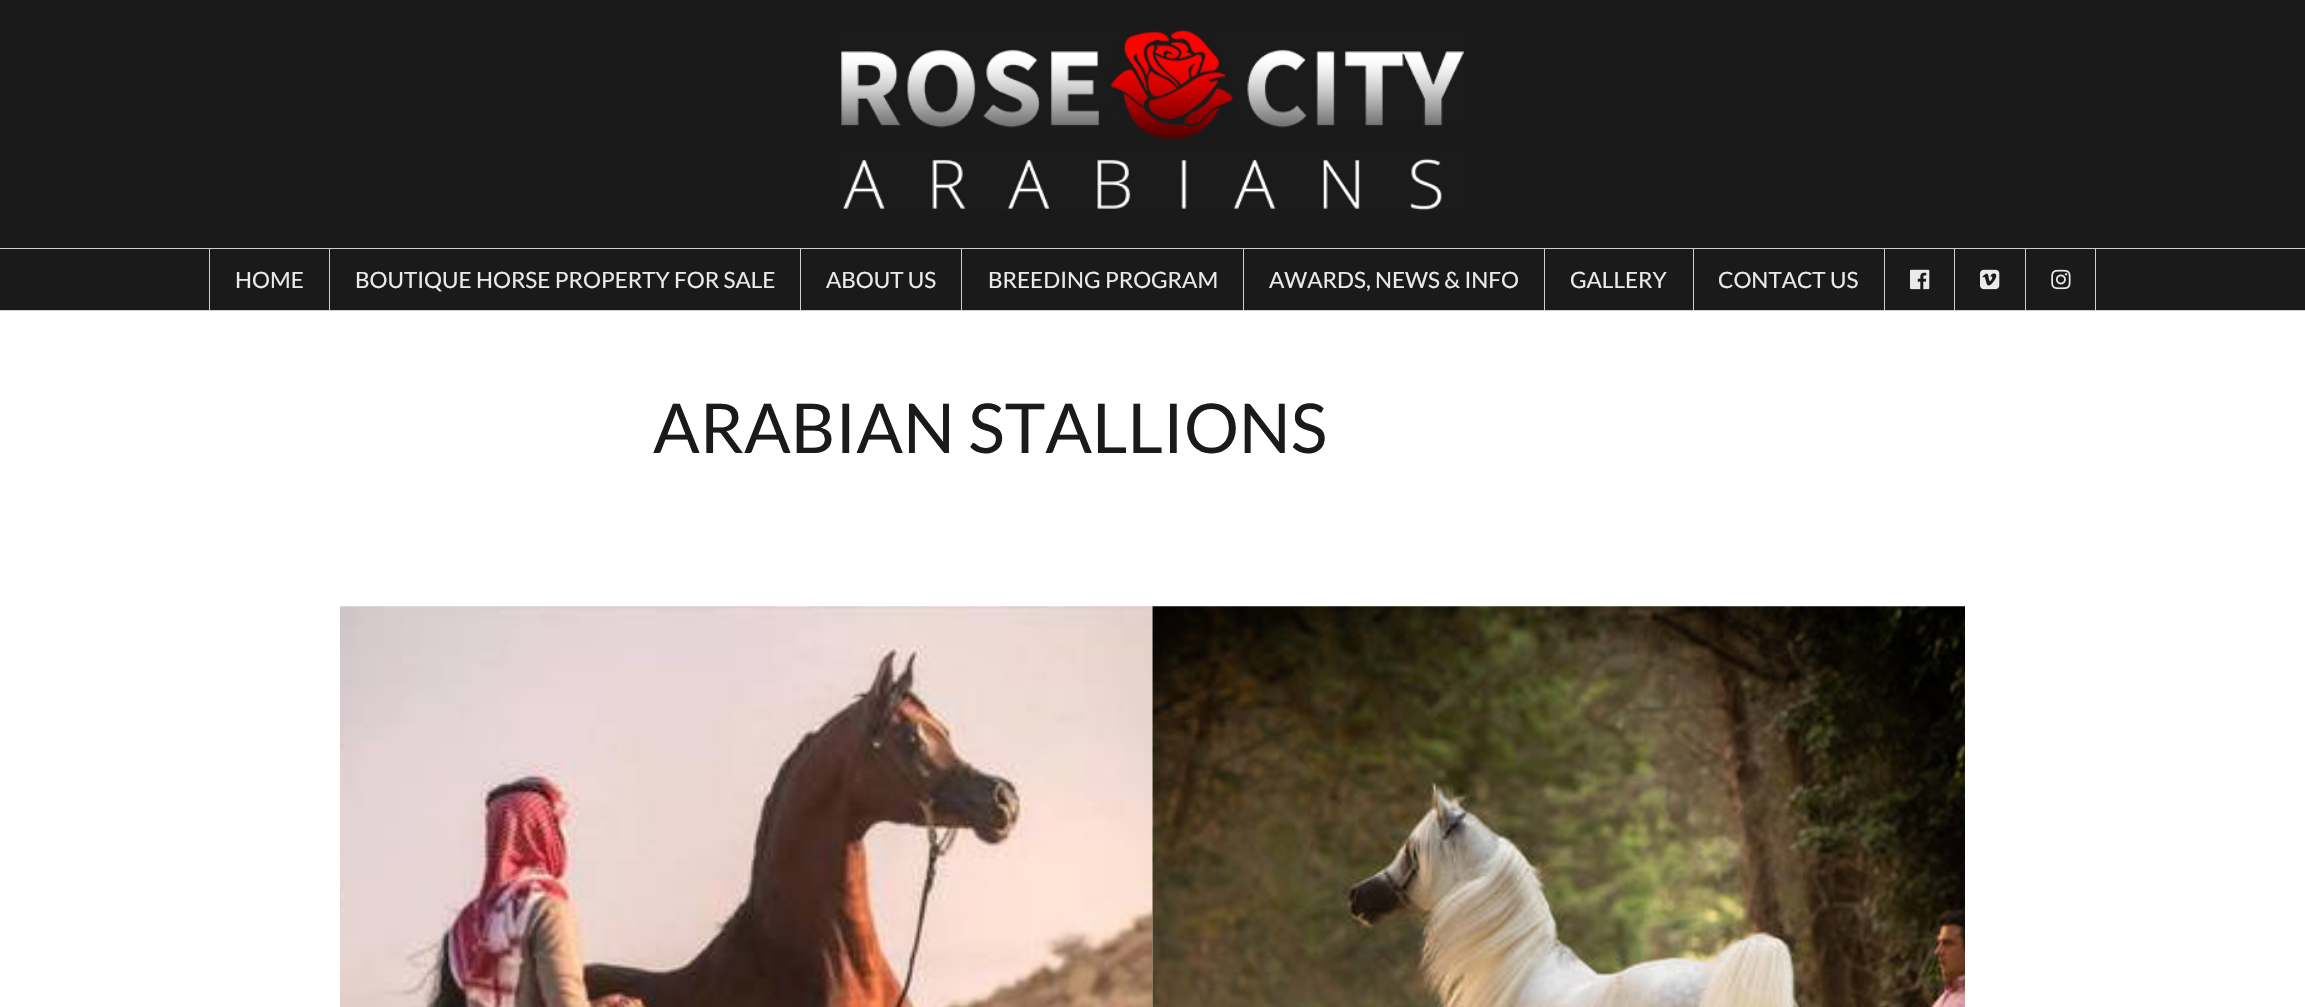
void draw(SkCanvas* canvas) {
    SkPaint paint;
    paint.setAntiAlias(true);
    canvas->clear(0xFF1A1A1A);
    canvas->drawImageRect(SkImages::DeferredFromEncodedData(SkData::MakeFromFileName("img1.png")), SkRect::MakeXYWH(841, 30, 623, 181), SkSamplingOptions());
    paint.setColor(0xFFCFCFCF);
    canvas->drawRect(SkRect::MakeXYWH(0, 248, 2305, 1), paint);
    canvas->drawRect(SkRect::MakeXYWH(0, 310, 2305, 1), paint);
    canvas->drawRect(SkRect::MakeXYWH(329, 249, 1, 61), paint);
    canvas->drawRect(SkRect::MakeXYWH(209, 249, 1, 61), paint);
    SkFont font1(fontMgr->matchFamilyStyle("Lato", SkFontStyle::Normal()), 22.5f);
    font1.setSubpixel(true);
    paint.setColor(0xFFEAEAEA);
    canvas->drawString("HOME", 235, 288, font1, paint);
    paint.setColor(0xFFCFCFCF);
    canvas->drawRect(SkRect::MakeXYWH(800, 249, 1, 61), paint);
    paint.setColor(0xFFEAEAEA);
    canvas->drawString("BOUTIQUE HORSE PROPERTY FOR SALE", 355, 288, font1, paint);
    paint.setColor(0xFFCFCFCF);
    canvas->drawRect(SkRect::MakeXYWH(961, 249, 1, 61), paint);
    paint.setColor(0xFFEAEAEA);
    canvas->drawString("ABOUT US", 826, 288, font1, paint);
    paint.setColor(0xFFCFCFCF);
    canvas->drawRect(SkRect::MakeXYWH(1243, 249, 1, 61), paint);
    paint.setColor(0xFFEAEAEA);
    canvas->drawString("BREEDING PROGRAM", 988, 288, font1, paint);
    paint.setColor(0xFFCFCFCF);
    canvas->drawRect(SkRect::MakeXYWH(1544, 249, 1, 61), paint);
    paint.setColor(0xFFEAEAEA);
    canvas->drawString("AWARDS, NEWS & INFO", 1269, 288, font1, paint);
    paint.setColor(0xFFCFCFCF);
    canvas->drawRect(SkRect::MakeXYWH(1693, 249, 1, 61), paint);
    paint.setColor(0xFFEAEAEA);
    canvas->drawString("GALLERY", 1570, 288, font1, paint);
    paint.setColor(0xFFCFCFCF);
    canvas->drawRect(SkRect::MakeXYWH(1884, 249, 1, 61), paint);
    paint.setColor(0xFFEAEAEA);
    canvas->drawString("CONTACT US", 1718, 288, font1, paint);
    paint.setColor(0xFFCFCFCF);
    canvas->drawRect(SkRect::MakeXYWH(1954, 249, 1, 61), paint);
    canvas->drawImageRect(SkImages::DeferredFromEncodedData(SkData::MakeFromFileName("img2.png")), SkRect::MakeXYWH(1910, 269, 20, 21), SkSamplingOptions());
    canvas->drawRect(SkRect::MakeXYWH(2025, 249, 1, 61), paint);
    canvas->drawImageRect(SkImages::DeferredFromEncodedData(SkData::MakeFromFileName("img3.png")), SkRect::MakeXYWH(1980, 269, 20, 21), SkSamplingOptions());
    canvas->drawRect(SkRect::MakeXYWH(2095, 249, 1, 61), paint);
    canvas->drawImageRect(SkImages::DeferredFromEncodedData(SkData::MakeFromFileName("img4.png")), SkRect::MakeXYWH(2051, 269, 20, 21), SkSamplingOptions());
    paint.setColor(0xFFFFFFFF);
    canvas->drawRect(SkRect::MakeXYWH(0, 311, 2305, 696), paint);
    SkFont font2(fontMgr->matchFamilyStyle("Lato", SkFontStyle::Normal()), 68.75f);
    font2.setSubpixel(true);
    paint.setColor(0xFF1A1A1A);
    canvas->drawString("ARABIAN STALLIONS", 653, 453, font2, paint);
    canvas->drawImageRect(SkImages::DeferredFromEncodedData(SkData::MakeFromFileName("img5.png")), SkRect::MakeXYWH(340, 606, 813, 401), SkSamplingOptions());
    canvas->drawImageRect(SkImages::DeferredFromEncodedData(SkData::MakeFromFileName("img6.png")), SkRect::MakeXYWH(1152, 606, 813, 401), SkSamplingOptions());
}
